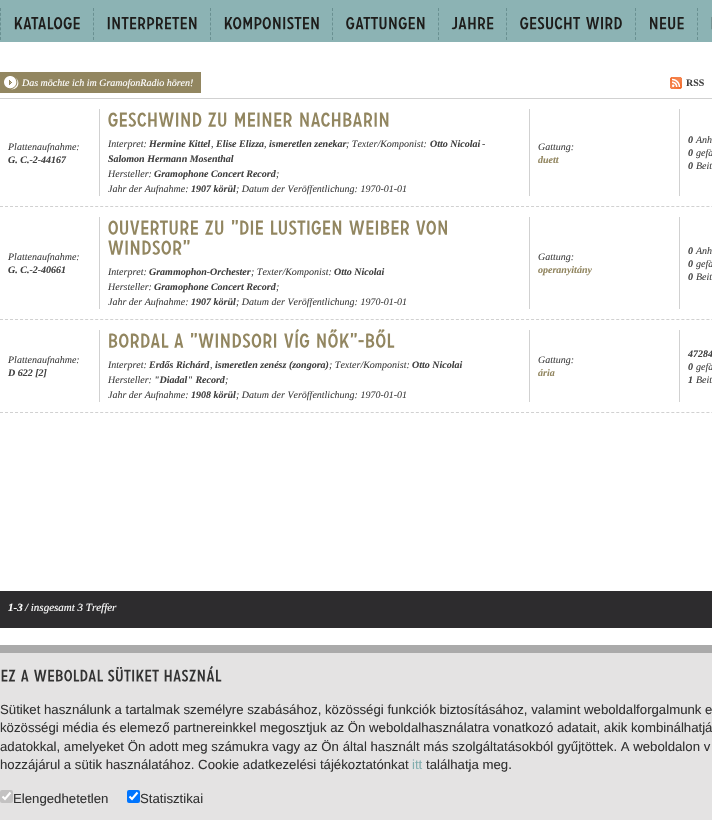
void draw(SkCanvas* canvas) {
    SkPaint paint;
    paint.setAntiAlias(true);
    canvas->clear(0xFFFFFFFF);
    paint.setColor(0xFF8CB3B4);
    canvas->drawRect(SkRect::MakeXYWH(0, 0, 712, 42), paint);
    paint.setStyle(SkPaint::kStroke_Style);
    paint.setStrokeWidth(1);
    paint.setColor(0xFF699091);
    paint.setPathEffect(SkDashPathEffect::Make({{3, 1.83f}}, 0));
    canvas->drawPath(SkPathBuilder().moveTo(0.5f, 8).lineTo(0.5f, 40).detach(), paint);
    paint.setPathEffect(nullptr);
    canvas->drawImageRect(SkImages::DeferredFromEncodedData(SkData::MakeFromFileName("img1.png")), SkRect::MakeXYWH(14, 17, 66, 13), SkSamplingOptions());
    paint.setPathEffect(SkDashPathEffect::Make({{3, 1.83f}}, 0));
    canvas->drawPath(SkPathBuilder().moveTo(93.5f, 8).lineTo(93.5f, 40).detach(), paint);
    paint.setPathEffect(nullptr);
    canvas->drawImageRect(SkImages::DeferredFromEncodedData(SkData::MakeFromFileName("img2.png")), SkRect::MakeXYWH(107, 17, 90, 13), SkSamplingOptions());
    paint.setPathEffect(SkDashPathEffect::Make({{3, 1.83f}}, 0));
    canvas->drawPath(SkPathBuilder().moveTo(210.5f, 8).lineTo(210.5f, 40).detach(), paint);
    paint.setPathEffect(nullptr);
    canvas->drawImageRect(SkImages::DeferredFromEncodedData(SkData::MakeFromFileName("img3.png")), SkRect::MakeXYWH(224, 17, 95, 13), SkSamplingOptions());
    paint.setPathEffect(SkDashPathEffect::Make({{3, 1.83f}}, 0));
    canvas->drawPath(SkPathBuilder().moveTo(332.5f, 8).lineTo(332.5f, 40).detach(), paint);
    paint.setPathEffect(nullptr);
    canvas->drawImageRect(SkImages::DeferredFromEncodedData(SkData::MakeFromFileName("img4.png")), SkRect::MakeXYWH(346, 17, 79, 13), SkSamplingOptions());
    paint.setPathEffect(SkDashPathEffect::Make({{3, 1.83f}}, 0));
    canvas->drawPath(SkPathBuilder().moveTo(438.5f, 8).lineTo(438.5f, 40).detach(), paint);
    paint.setPathEffect(nullptr);
    canvas->drawImageRect(SkImages::DeferredFromEncodedData(SkData::MakeFromFileName("img5.png")), SkRect::MakeXYWH(451, 17, 43, 13), SkSamplingOptions());
    paint.setPathEffect(SkDashPathEffect::Make({{3, 1.83f}}, 0));
    canvas->drawPath(SkPathBuilder().moveTo(506.5f, 8).lineTo(506.5f, 40).detach(), paint);
    paint.setPathEffect(nullptr);
    canvas->drawImageRect(SkImages::DeferredFromEncodedData(SkData::MakeFromFileName("img6.png")), SkRect::MakeXYWH(520, 17, 61, 13), SkSamplingOptions());
    canvas->drawImageRect(SkImages::DeferredFromEncodedData(SkData::MakeFromFileName("img7.png")), SkRect::MakeXYWH(586, 17, 36, 13), SkSamplingOptions());
    paint.setPathEffect(SkDashPathEffect::Make({{3, 1.83f}}, 0));
    canvas->drawPath(SkPathBuilder().moveTo(635.5f, 8).lineTo(635.5f, 40).moveTo(697.5f, 8).lineTo(697.5f, 40).detach(), paint);
    paint.setPathEffect(nullptr);
    canvas->drawImageRect(SkImages::DeferredFromEncodedData(SkData::MakeFromFileName("img8.png")), SkRect::MakeXYWH(650, 17, 34, 13), SkSamplingOptions());
    canvas->drawImageRect(SkImages::DeferredFromEncodedData(SkData::MakeFromFileName("img9.png")), SkRect::MakeXYWH(711, 17, 1, 13), SkSamplingOptions());
    paint.setStyle(SkPaint::kFill_Style);
    paint.setColor(0xFFD1D1D1);
    canvas->drawRect(SkRect::MakeXYWH(0, 98, 712, 1), paint);
    paint.setColor(0xFF928660);
    canvas->drawRect(SkRect::MakeXYWH(0, 72, 201, 21), paint);
    canvas->drawImageRect(SkImages::DeferredFromEncodedData(SkData::MakeFromFileName("img10.png")), SkRect::MakeXYWH(4, 76, 15, 14), SkSamplingOptions());
    SkFont font1(fontMgr->matchFamilyStyle("Liberation Serif", SkFontStyle::Italic()), 10);
    font1.setSubpixel(true);
    paint.setColor(0xFFFFFFFF);
    canvas->drawString("Das möchte ich im GramofonRadio hören!", 22, 86, font1, paint);
    canvas->drawImageRect(SkImages::DeferredFromEncodedData(SkData::MakeFromFileName("img11.png")), SkRect::MakeXYWH(670, 77, 12, 12), SkSamplingOptions());
    SkFont font2(fontMgr->matchFamilyStyle("Liberation Serif", SkFontStyle::Bold()), 10);
    font2.setSubpixel(true);
    paint.setColor(0xFF414141);
    canvas->drawString("RSS", 686, 86, font2, paint);
    paint.setStyle(SkPaint::kStroke_Style);
    paint.setColor(0xFFD1D1D1);
    paint.setPathEffect(SkDashPathEffect::Make({{3, 2.01f}}, 0));
    canvas->drawPath(SkPathBuilder().moveTo(0, 206.5f).lineTo(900, 206.5f).detach(), paint);
    paint.setPathEffect(nullptr);
    paint.setStyle(SkPaint::kFill_Style);
    canvas->drawRect(SkRect::MakeXYWH(99, 109, 1, 87), paint);
    paint.setColor(0xFF414141);
    canvas->drawString("Plattenaufnahme:", 8, 150, font1, paint);
    SkFont font3(fontMgr->matchFamilyStyle("Liberation Serif", SkFontStyle::BoldItalic()), 10);
    font3.setSubpixel(true);
    canvas->drawString("G. C.-2-44167", 8, 163, font3, paint);
    paint.setColor(0xFFD1D1D1);
    canvas->drawRect(SkRect::MakeXYWH(529, 109, 1, 87), paint);
    canvas->drawImageRect(SkImages::DeferredFromEncodedData(SkData::MakeFromFileName("img12.png")), SkRect::MakeXYWH(108, 112, 94, 15), SkSamplingOptions());
    canvas->drawImageRect(SkImages::DeferredFromEncodedData(SkData::MakeFromFileName("img13.png")), SkRect::MakeXYWH(208, 112, 19, 15), SkSamplingOptions());
    canvas->drawImageRect(SkImages::DeferredFromEncodedData(SkData::MakeFromFileName("img14.png")), SkRect::MakeXYWH(235, 112, 57, 15), SkSamplingOptions());
    canvas->drawImageRect(SkImages::DeferredFromEncodedData(SkData::MakeFromFileName("img15.png")), SkRect::MakeXYWH(300, 112, 89, 15), SkSamplingOptions());
    paint.setColor(0xFF414141);
    canvas->drawString("Interpret:", 108, 147, font1, paint);
    canvas->drawString("Hermine Kittel", 149, 147, font3, paint);
    canvas->drawString("Elise Elizza", 216, 147, font3, paint);
    canvas->drawString("ismeretlen zenekar", 269, 147, font3, paint);
    canvas->drawString("; Texter/Komponist:", 346, 147, font1, paint);
    canvas->drawString("Otto Nicolai", 430, 147, font3, paint);
    canvas->drawString("-", 482, 147, font1, paint);
    canvas->drawString(",", 211, 147, font1, paint);
    canvas->drawString(",", 264, 147, font1, paint);
    canvas->drawString("Salomon Hermann Mosenthal", 108, 162, font3, paint);
    canvas->drawString("Hersteller:", 108, 177, font1, paint);
    canvas->drawString("Gramophone Concert Record", 154, 177, font3, paint);
    canvas->drawString(";", 276, 177, font1, paint);
    canvas->drawString("Jahr der Aufnahme:", 108, 192, font1, paint);
    canvas->drawString("1907 körül", 191, 192, font3, paint);
    canvas->drawString("; Datum der Veröffentlichung: 1970-01-01", 236, 192, font1, paint);
    paint.setColor(0xFFD1D1D1);
    canvas->drawRect(SkRect::MakeXYWH(679, 109, 1, 87), paint);
    paint.setColor(0xFF414141);
    canvas->drawString("Gattung:", 538, 150, font1, paint);
    paint.setColor(0xFF928660);
    canvas->drawString("duett", 538, 163, font3, paint);
    paint.setColor(0xFF414141);
    canvas->drawString("0", 688, 143, font3, paint);
    canvas->drawString("Anh", 696, 143, font1, paint);
    canvas->drawString("0", 688, 156, font3, paint);
    canvas->drawString("gefä", 696, 156, font1, paint);
    canvas->drawString("0", 688, 169, font3, paint);
    canvas->drawString("Beit", 696, 169, font1, paint);
    paint.setStyle(SkPaint::kStroke_Style);
    paint.setColor(0xFFD1D1D1);
    paint.setPathEffect(SkDashPathEffect::Make({{3, 2.01f}}, 0));
    canvas->drawPath(SkPathBuilder().moveTo(0, 319.5f).lineTo(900, 319.5f).detach(), paint);
    paint.setPathEffect(nullptr);
    paint.setStyle(SkPaint::kFill_Style);
    canvas->drawRect(SkRect::MakeXYWH(99, 217, 1, 92), paint);
    paint.setColor(0xFF414141);
    canvas->drawString("Plattenaufnahme:", 8, 260, font1, paint);
    canvas->drawString("G. C.-2-40661", 8, 273, font3, paint);
    paint.setColor(0xFFD1D1D1);
    canvas->drawRect(SkRect::MakeXYWH(679, 217, 1, 92), paint);
    paint.setColor(0xFF414141);
    canvas->drawString("Gattung:", 538, 260, font1, paint);
    paint.setColor(0xFF928660);
    canvas->drawString("operanyitány", 538, 273, font3, paint);
    paint.setColor(0xFF414141);
    canvas->drawString("0", 688, 254, font3, paint);
    canvas->drawString("Anh", 696, 254, font1, paint);
    canvas->drawString("0", 688, 267, font3, paint);
    canvas->drawString("gefä", 696, 267, font1, paint);
    canvas->drawString("0", 688, 280, font3, paint);
    canvas->drawString("Beit", 696, 280, font1, paint);
    paint.setColor(0xFFD1D1D1);
    canvas->drawRect(SkRect::MakeXYWH(529, 217, 1, 92), paint);
    canvas->drawImageRect(SkImages::DeferredFromEncodedData(SkData::MakeFromFileName("img16.png")), SkRect::MakeXYWH(108, 220, 90, 15), SkSamplingOptions());
    canvas->drawImageRect(SkImages::DeferredFromEncodedData(SkData::MakeFromFileName("img13.png")), SkRect::MakeXYWH(205, 220, 19, 15), SkSamplingOptions());
    canvas->drawImageRect(SkImages::DeferredFromEncodedData(SkData::MakeFromFileName("img17.png")), SkRect::MakeXYWH(232, 220, 31, 15), SkSamplingOptions());
    canvas->drawImageRect(SkImages::DeferredFromEncodedData(SkData::MakeFromFileName("img18.png")), SkRect::MakeXYWH(271, 220, 71, 15), SkSamplingOptions());
    canvas->drawImageRect(SkImages::DeferredFromEncodedData(SkData::MakeFromFileName("img19.png")), SkRect::MakeXYWH(349, 220, 60, 15), SkSamplingOptions());
    canvas->drawImageRect(SkImages::DeferredFromEncodedData(SkData::MakeFromFileName("img20.png")), SkRect::MakeXYWH(416, 220, 31, 15), SkSamplingOptions());
    canvas->drawImageRect(SkImages::DeferredFromEncodedData(SkData::MakeFromFileName("img21.png")), SkRect::MakeXYWH(108, 240, 82, 15), SkSamplingOptions());
    paint.setColor(0xFF414141);
    canvas->drawString("Interpret:", 108, 275, font1, paint);
    canvas->drawString("Grammophon-Orchester", 149, 275, font3, paint);
    canvas->drawString("; Texter/Komponist:", 251, 275, font1, paint);
    canvas->drawString("Otto Nicolai", 334, 275, font3, paint);
    canvas->drawString("Hersteller:", 108, 290, font1, paint);
    canvas->drawString("Gramophone Concert Record", 154, 290, font3, paint);
    canvas->drawString(";", 276, 290, font1, paint);
    canvas->drawString("Jahr der Aufnahme:", 108, 305, font1, paint);
    canvas->drawString("1907 körül", 191, 305, font3, paint);
    canvas->drawString("; Datum der Veröffentlichung: 1970-01-01", 236, 305, font1, paint);
    paint.setStyle(SkPaint::kStroke_Style);
    paint.setColor(0xFFD1D1D1);
    paint.setPathEffect(SkDashPathEffect::Make({{3, 2.01f}}, 0));
    canvas->drawPath(SkPathBuilder().moveTo(0, 412.5f).lineTo(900, 412.5f).detach(), paint);
    paint.setPathEffect(nullptr);
    paint.setStyle(SkPaint::kFill_Style);
    canvas->drawRect(SkRect::MakeXYWH(99, 330, 1, 72), paint);
    paint.setColor(0xFF414141);
    canvas->drawString("Plattenaufnahme:", 8, 363, font1, paint);
    canvas->drawString("D 622 [2]", 8, 376, font3, paint);
    paint.setColor(0xFFD1D1D1);
    canvas->drawRect(SkRect::MakeXYWH(529, 330, 1, 72), paint);
    canvas->drawImageRect(SkImages::DeferredFromEncodedData(SkData::MakeFromFileName("img22.png")), SkRect::MakeXYWH(109, 333, 60, 15), SkSamplingOptions());
    canvas->drawImageRect(SkImages::DeferredFromEncodedData(SkData::MakeFromFileName("img23.png")), SkRect::MakeXYWH(174, 333, 10, 15), SkSamplingOptions());
    canvas->drawImageRect(SkImages::DeferredFromEncodedData(SkData::MakeFromFileName("img24.png")), SkRect::MakeXYWH(191, 333, 86, 15), SkSamplingOptions());
    canvas->drawImageRect(SkImages::DeferredFromEncodedData(SkData::MakeFromFileName("img25.png")), SkRect::MakeXYWH(284, 329, 26, 19), SkSamplingOptions());
    canvas->drawImageRect(SkImages::DeferredFromEncodedData(SkData::MakeFromFileName("img26.png")), SkRect::MakeXYWH(317, 329, 78, 19), SkSamplingOptions());
    paint.setColor(0xFF414141);
    canvas->drawString("Interpret:", 108, 368, font1, paint);
    canvas->drawString("Erdős Richárd", 149, 368, font3, paint);
    canvas->drawString(",", 210, 368, font1, paint);
    canvas->drawString("ismeretlen zenész (zongora)", 215, 368, font3, paint);
    canvas->drawString("; Texter/Komponist:", 329, 368, font1, paint);
    canvas->drawString("Otto Nicolai", 412, 368, font3, paint);
    canvas->drawString("Hersteller:", 108, 383, font1, paint);
    canvas->drawString("\"Diadal\" Record", 154, 383, font3, paint);
    canvas->drawString(";", 225, 383, font1, paint);
    canvas->drawString("Jahr der Aufnahme:", 108, 398, font1, paint);
    canvas->drawString("1908 körül", 191, 398, font3, paint);
    canvas->drawString("; Datum der Veröffentlichung: 1970-01-01", 236, 398, font1, paint);
    paint.setColor(0xFFD1D1D1);
    canvas->drawRect(SkRect::MakeXYWH(679, 330, 1, 72), paint);
    paint.setColor(0xFF414141);
    canvas->drawString("Gattung:", 538, 363, font1, paint);
    paint.setColor(0xFF928660);
    canvas->drawString("ária", 538, 376, font3, paint);
    paint.setColor(0xFF414141);
    canvas->drawString("47284", 688, 357, font3, paint);
    canvas->drawString("0", 688, 370, font3, paint);
    canvas->drawString("gefä", 696, 370, font1, paint);
    canvas->drawString("1", 688, 383, font3, paint);
    canvas->drawString("Beit", 696, 383, font1, paint);
    paint.setColor(0xFF2D2C2E);
    canvas->drawRect(SkRect::MakeXYWH(0, 591, 712, 37), paint);
    SkFont font4(fontMgr->matchFamilyStyle("Liberation Serif", SkFontStyle::BoldItalic()), 11);
    font4.setSubpixel(true);
    paint.setColor(0xFFFFFFFF);
    canvas->drawString("1-3", 8, 611, font4, paint);
    SkFont font5(fontMgr->matchFamilyStyle("Liberation Serif", SkFontStyle::Italic()), 11);
    font5.setSubpixel(true);
    canvas->drawString("/ insgesamt 3 Treffer", 25, 611, font5, paint);
    paint.setColor(0xFFAAAAAA);
    canvas->drawRect(SkRect::MakeXYWH(0, 645, 712, 8), paint);
    paint.setColor(0xFFE4E3E3);
    canvas->drawRect(SkRect::MakeXYWH(0, 653, 712, 167), paint);
    canvas->drawImageRect(SkImages::DeferredFromEncodedData(SkData::MakeFromFileName("img27.png")), SkRect::MakeXYWH(1, 669, 15, 13), SkSamplingOptions());
    canvas->drawImageRect(SkImages::DeferredFromEncodedData(SkData::MakeFromFileName("img28.png")), SkRect::MakeXYWH(21, 669, 8, 13), SkSamplingOptions());
    canvas->drawImageRect(SkImages::DeferredFromEncodedData(SkData::MakeFromFileName("img29.png")), SkRect::MakeXYWH(34, 669, 69, 13), SkSamplingOptions());
    canvas->drawImageRect(SkImages::DeferredFromEncodedData(SkData::MakeFromFileName("img30.png")), SkRect::MakeXYWH(108, 667, 51, 15), SkSamplingOptions());
    canvas->drawImageRect(SkImages::DeferredFromEncodedData(SkData::MakeFromFileName("img31.png")), SkRect::MakeXYWH(164, 666, 58, 16), SkSamplingOptions());
    SkFont font6(fontMgr->matchFamilyStyle("Liberation Sans", SkFontStyle::Normal()), 13.2f);
    font6.setSubpixel(true);
    paint.setColor(0xFF333333);
    canvas->drawString("Sütiket használunk a tartalmak személyre szabásához, közösségi funkciók biztosításához, valamint weboldalforgalmunk e", 0, 714, font6, paint);
    canvas->drawString("közösségi média és elemező partnereinkkel megosztjuk az Ön weboldalhasználatra vonatkozó adatait, akik kombinálhatjá", 0, 732, font6, paint);
    canvas->drawString("adatokkal, amelyeket Ön adott meg számukra vagy az Ön által használt más szolgáltatásokból gyűjtöttek. A weboldalon v", 0, 751, font6, paint);
    canvas->drawString("hozzájárul a sütik használatához. Cookie adatkezelési tájékoztatónkat", 0, 769, font6, paint);
    paint.setColor(0xFF81ADAE);
    canvas->drawString("itt", 412, 769, font6, paint);
    paint.setColor(0xFF333333);
    canvas->drawString("találhatja meg.", 426, 769, font6, paint);
    paint.setColor(0xFFC3C2C2);
    canvas->drawRoundRect(SkRect::MakeXYWH(0, 790, 13, 13), 2, 2, paint);
    paint.setStyle(SkPaint::kStroke_Style);
    paint.setStrokeWidth(2.1f);
    paint.setColor(0xFFFFFFFF);
    canvas->drawPath(SkPathBuilder().moveTo(2.5f, 796.5f).lineTo(5, 799).lineTo(10.5f, 792.5f).detach(), paint);
    paint.setStyle(SkPaint::kFill_Style);
    paint.setColor(0xFF333333);
    canvas->drawString("Elengedhetetlen", 13, 803, font6, paint);
    paint.setColor(0xFF0075FF);
    canvas->drawRoundRect(SkRect::MakeXYWH(127, 790, 13, 13), 2, 2, paint);
    paint.setStyle(SkPaint::kStroke_Style);
    paint.setColor(0xFFFFFFFF);
    canvas->drawPath(SkPathBuilder().moveTo(129.5f, 796.5f).lineTo(132, 799).lineTo(137.5f, 792.5f).detach(), paint);
    paint.setStyle(SkPaint::kFill_Style);
    paint.setColor(0xFF333333);
    canvas->drawString("Statisztikai", 140, 803, font6, paint);
}
